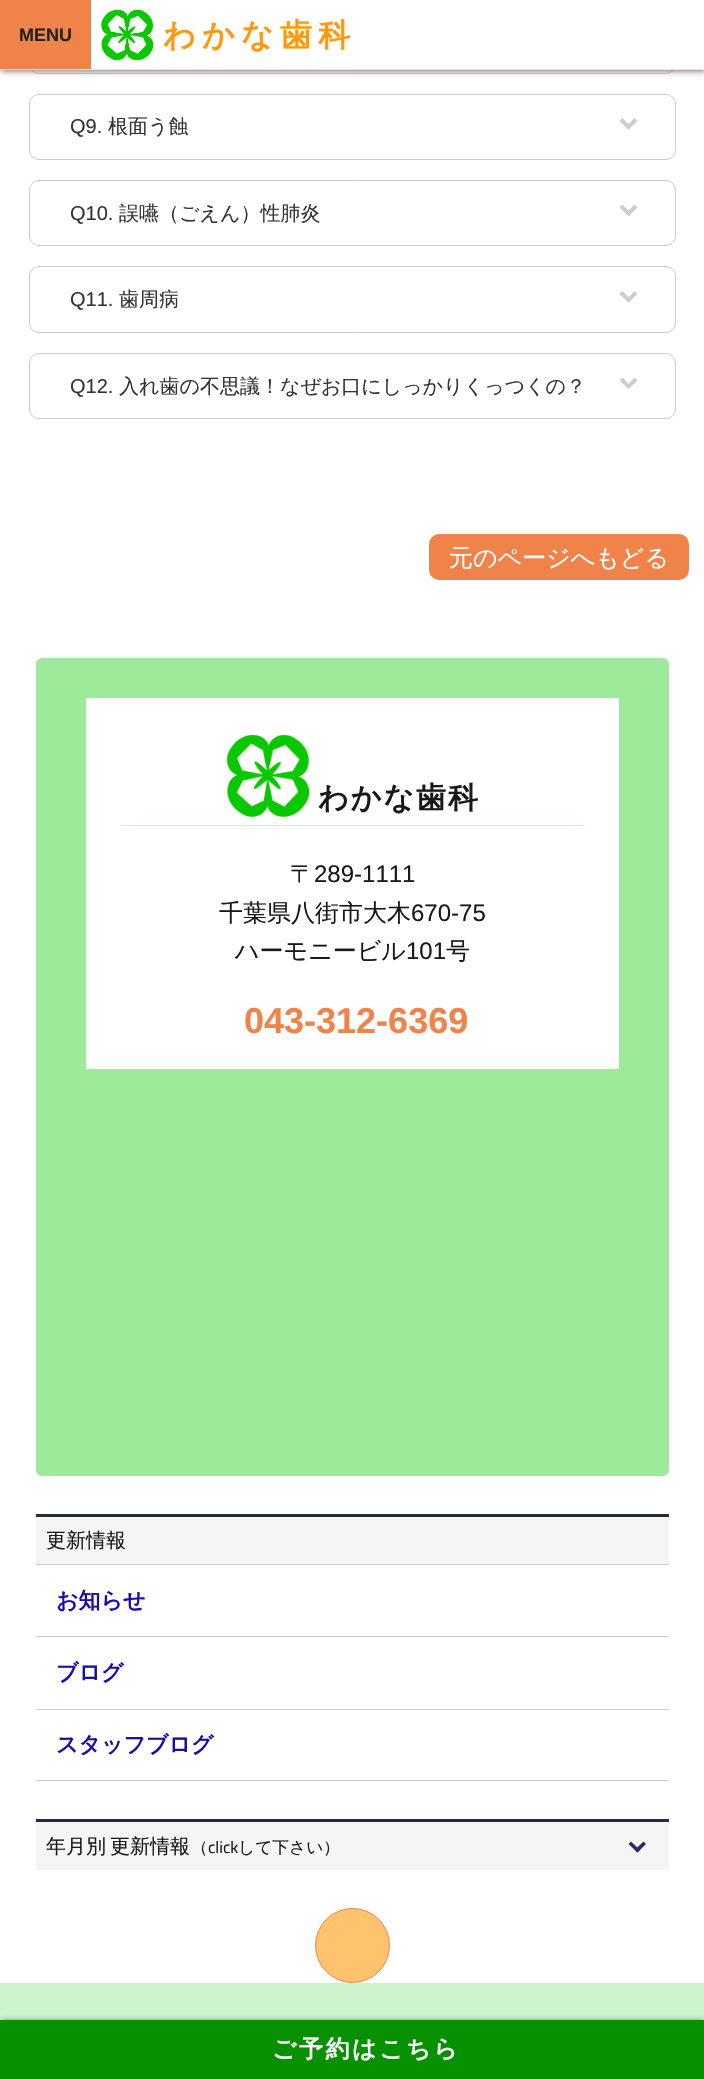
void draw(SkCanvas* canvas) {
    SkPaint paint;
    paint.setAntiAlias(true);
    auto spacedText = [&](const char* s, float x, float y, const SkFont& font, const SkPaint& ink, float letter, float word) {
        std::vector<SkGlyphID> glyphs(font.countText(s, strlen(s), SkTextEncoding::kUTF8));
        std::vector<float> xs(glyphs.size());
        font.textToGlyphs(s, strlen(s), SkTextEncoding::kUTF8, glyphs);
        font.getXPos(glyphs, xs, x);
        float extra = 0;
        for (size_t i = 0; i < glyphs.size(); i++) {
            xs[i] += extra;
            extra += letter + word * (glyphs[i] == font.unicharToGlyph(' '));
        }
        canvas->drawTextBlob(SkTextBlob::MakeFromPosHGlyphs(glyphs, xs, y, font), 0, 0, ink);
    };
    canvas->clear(0xFFFFFFFF);
    paint.setStyle(SkPaint::kStroke_Style);
    paint.setStrokeWidth(1);
    paint.setColor(0xFFCCCCCC);
    canvas->drawRoundRect(SkRect::MakeXYWH(29.5f, 8.5f, 646, 65), 9.5f, 9.5f, paint);
    paint.setStyle(SkPaint::kFill_Style);
    paint.setColor(0xFF707070);
    paint.setMaskFilter(SkMaskFilter::MakeBlur(kNormal_SkBlurStyle, 3));
    canvas->drawRect(SkRect::MakeXYWH(1, 1, 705, 70), paint);
    paint.setMaskFilter(nullptr);
    paint.setColor(0xFFFFFFFF);
    canvas->drawRect(SkRect::MakeXYWH(91, 0, 613, 69), paint);
    paint.setColor(0xFFCEF4CC);
    canvas->drawRect(SkRect::MakeXYWH(0, 69, 704, 1), paint);
    paint.setColor(0xFFEF834A);
    canvas->drawRect(SkRect::MakeXYWH(0, 0, 91, 69), paint);
    SkFont font1(fontMgr->matchFamilyStyle("Liberation Sans", SkFontStyle::Bold()), 18);
    font1.setSubpixel(true);
    paint.setColor(0xFF222222);
    canvas->drawString("MENU", 19, 41, font1, paint);
    canvas->drawImageRect(SkImages::DeferredFromEncodedData(SkData::MakeFromFileName("img1.png")), SkRect::MakeXYWH(101, 9, 53, 52), SkSamplingOptions());
    SkFont font2(fontMgr->matchFamilyStyle("WenQuanYi Zen Hei", SkFontStyle::Bold()), 32);
    font2.setSubpixel(true);
    paint.setColor(0xFFFF990B);
    spacedText("わかな歯科", 163, 46, font2, paint, 6.25f, 0);
    paint.setStyle(SkPaint::kStroke_Style);
    paint.setColor(0xFFCCCCCC);
    canvas->drawRoundRect(SkRect::MakeXYWH(29.5f, 94.5f, 646, 65), 9.5f, 9.5f, paint);
    SkFont font3(fontMgr->matchFamilyStyle("Liberation Sans", SkFontStyle::Normal()), 20);
    font3.setSubpixel(true);
    paint.setStyle(SkPaint::kFill_Style);
    paint.setColor(0xFF333333);
    canvas->drawString("Q9.", 70, 133, font3, paint);
    SkFont font4(fontMgr->matchFamilyStyle("WenQuanYi Zen Hei", SkFontStyle(500, SkFontStyle::kNormal_Width, SkFontStyle::kUpright_Slant)), 20);
    font4.setSubpixel(true);
    canvas->drawString("根面う蝕", 108, 133, font4, paint);
    paint.setColor(0xFFCCCCCC);
    canvas->drawPath(SkPathBuilder().moveTo(637.5f, 121).lineTo(628.5f, 129.5f).lineTo(626, 127).lineTo(634.5f, 118).close().detach(), paint);
    canvas->drawPath(SkPathBuilder().moveTo(631, 127).lineTo(628.5f, 129.5f).lineTo(619.5f, 121).lineTo(622.5f, 118).close().detach(), paint);
    paint.setStyle(SkPaint::kStroke_Style);
    canvas->drawRoundRect(SkRect::MakeXYWH(29.5f, 180.5f, 646, 65), 9.5f, 9.5f, paint);
    paint.setStyle(SkPaint::kFill_Style);
    paint.setColor(0xFF333333);
    canvas->drawString("Q10.", 70, 220, font3, paint);
    canvas->drawString("誤嚥（ごえん）性肺炎", 119, 220, font4, paint);
    paint.setColor(0xFFCCCCCC);
    canvas->drawPath(SkPathBuilder().moveTo(637.5f, 207.5f).lineTo(628.5f, 216).lineTo(626, 213.5f).lineTo(634.5f, 204.5f).close().detach(), paint);
    canvas->drawPath(SkPathBuilder().moveTo(631, 213.5f).lineTo(628.5f, 216).lineTo(619.5f, 207.5f).lineTo(622.5f, 204.5f).close().detach(), paint);
    paint.setStyle(SkPaint::kStroke_Style);
    canvas->drawRoundRect(SkRect::MakeXYWH(29.5f, 266.5f, 646, 66), 9.5f, 9.5f, paint);
    paint.setStyle(SkPaint::kFill_Style);
    paint.setColor(0xFF333333);
    canvas->drawString("Q11.", 70, 306, font3, paint);
    canvas->drawString("歯周病", 119, 306, font4, paint);
    paint.setColor(0xFFCCCCCC);
    canvas->drawPath(SkPathBuilder().moveTo(637.5f, 294).lineTo(628.5f, 302.5f).lineTo(626, 300).lineTo(634.5f, 291).close().detach(), paint);
    canvas->drawPath(SkPathBuilder().moveTo(631, 300).lineTo(628.5f, 302.5f).lineTo(619.5f, 294).lineTo(622.5f, 291).close().detach(), paint);
    paint.setStyle(SkPaint::kStroke_Style);
    canvas->drawRoundRect(SkRect::MakeXYWH(29.5f, 353.5f, 646, 65), 9.5f, 9.5f, paint);
    paint.setStyle(SkPaint::kFill_Style);
    paint.setColor(0xFF333333);
    canvas->drawString("Q12.", 70, 393, font3, paint);
    canvas->drawString("入れ歯の不思議！なぜお口にしっかりくっつくの？", 119, 393, font4, paint);
    paint.setColor(0xFFCCCCCC);
    canvas->drawPath(SkPathBuilder().moveTo(637.5f, 380.5f).lineTo(628.5f, 389).lineTo(626, 386.5f).lineTo(634.5f, 377.5f).close().detach(), paint);
    canvas->drawPath(SkPathBuilder().moveTo(631, 386.5f).lineTo(628.5f, 389).lineTo(619.5f, 380.5f).lineTo(622.5f, 377.5f).close().detach(), paint);
    paint.setColor(0xFFEF834A);
    canvas->drawRoundRect(SkRect::MakeXYWH(429, 534, 260, 46), 10, 10, paint);
    SkFont font5(fontMgr->matchFamilyStyle("WenQuanYi Zen Hei", SkFontStyle(500, SkFontStyle::kNormal_Width, SkFontStyle::kUpright_Slant)), 24);
    font5.setSubpixel(true);
    paint.setColor(0xFFFFFFFF);
    canvas->drawString("元のページへもどる", 449, 566, font5, paint);
    paint.setColor(0xFF9DEA9A);
    canvas->drawRoundRect(SkRect::MakeXYWH(36, 658, 633, 818), 6, 6, paint);
    paint.setColor(0xFFFFFFFF);
    canvas->drawRect(SkRect::MakeXYWH(86, 698, 533, 371), paint);
    paint.setColor(0xFFCEF4CC);
    canvas->drawRect(SkRect::MakeXYWH(121, 825, 463, 1), paint);
    canvas->drawImageRect(SkImages::DeferredFromEncodedData(SkData::MakeFromFileName("img2.png")), SkRect::MakeXYWH(226, 734, 84, 83), SkSamplingOptions());
    SkFont font6(fontMgr->matchFamilyStyle("WenQuanYi Zen Hei", SkFontStyle::Bold()), 30);
    font6.setSubpixel(true);
    paint.setColor(0xFF191919);
    spacedText("わかな歯科", 318, 808, font6, paint, 2, 0);
    canvas->drawString("〒", 290, 882, font5, paint);
    SkFont font7(fontMgr->matchFamilyStyle("Liberation Sans", SkFontStyle::Normal()), 24);
    font7.setSubpixel(true);
    canvas->drawString("289-1111", 314, 882, font7, paint);
    canvas->drawString("千葉県八街市大木", 219, 921, font5, paint);
    canvas->drawString("670-75", 411, 921, font7, paint);
    canvas->drawString("ハーモニービル", 235, 959, font5, paint);
    canvas->drawString("101", 406, 959, font7, paint);
    canvas->drawString("号", 446, 959, font5, paint);
    SkFont font8(fontMgr->matchFamilyStyle("Liberation Sans", SkFontStyle::Bold()), 36);
    font8.setSubpixel(true);
    paint.setColor(0xFFEF834A);
    canvas->drawString("043-312-6369", 244, 1033, font8, paint);
    paint.setColor(0xFFF5F5F5);
    canvas->drawRect(SkRect::MakeXYWH(36, 1517, 633, 47), paint);
    paint.setColor(0xFF252D39);
    canvas->drawRect(SkRect::MakeXYWH(36, 1514, 633, 3), paint);
    paint.setColor(0xFF191919);
    canvas->drawString("更新情報", 46, 1547, font4, paint);
    paint.setColor(0xFFCCCCCC);
    canvas->drawRect(SkRect::MakeXYWH(36, 1780, 633, 1), paint);
    canvas->drawRect(SkRect::MakeXYWH(36, 1564, 633, 1), paint);
    SkFont font9(fontMgr->matchFamilyStyle("WenQuanYi Zen Hei", SkFontStyle::Bold()), 22);
    font9.setSubpixel(true);
    paint.setColor(0xFF1A0DAB);
    canvas->drawString("お知らせ", 56, 1608, font9, paint);
    paint.setColor(0xFFCCCCCC);
    canvas->drawRect(SkRect::MakeXYWH(36, 1636, 633, 1), paint);
    paint.setColor(0xFF1A0DAB);
    canvas->drawString("ブログ", 56, 1680, font9, paint);
    paint.setColor(0xFFCCCCCC);
    canvas->drawRect(SkRect::MakeXYWH(36, 1709, 633, 1), paint);
    paint.setColor(0xFF1A0DAB);
    canvas->drawString("スタッフブログ", 56, 1752, font9, paint);
    paint.setColor(0xFFF5F5F5);
    canvas->drawRect(SkRect::MakeXYWH(36, 1822, 633, 48), paint);
    paint.setColor(0xFF252D39);
    canvas->drawRect(SkRect::MakeXYWH(36, 1819, 633, 3), paint);
    paint.setColor(0xFF191919);
    spacedText("年月別 更新情報", 46, 1853, font4, paint, 0, -2);
    SkFont font10(fontMgr->matchFamilyStyle("WenQuanYi Zen Hei", SkFontStyle(500, SkFontStyle::kNormal_Width, SkFontStyle::kUpright_Slant)), 16.75f);
    font10.setSubpixel(true);
    canvas->drawString("（", 191, 1853, font10, paint);
    SkFont font11(fontMgr->matchFamilyStyle("Cairo", SkFontStyle::Normal()), 16.75f);
    font11.setSubpixel(true);
    canvas->drawString("click", 208, 1853, font11, paint);
    canvas->drawString("して下さい）", 238, 1853, font10, paint);
    paint.setColor(0xFF292B68);
    canvas->drawPath(SkPathBuilder().moveTo(646, 1844).lineTo(637.5f, 1852.5f).lineTo(634.5f, 1850).lineTo(643.5f, 1841.5f).close().detach(), paint);
    canvas->drawPath(SkPathBuilder().moveTo(640, 1850).lineTo(637.5f, 1852.5f).lineTo(628.5f, 1844).lineTo(631, 1841.5f).close().detach(), paint);
    paint.setColor(0xFFFFC26D);
    canvas->drawCircle(352.5f, 1945.5f, 37, paint);
    paint.setStyle(SkPaint::kStroke_Style);
    paint.setColor(0xFFEF834A);
    canvas->drawCircle(352.5f, 1945.5f, 37, paint);
    paint.setStyle(SkPaint::kFill_Style);
    paint.setColor(0xFFCEF4CC);
    canvas->drawRect(SkRect::MakeXYWH(0, 1983, 704, 37), paint);
    paint.setColor(0xFF707070);
    paint.setMaskFilter(SkMaskFilter::MakeBlur(kNormal_SkBlurStyle, 3));
    canvas->drawRect(SkRect::MakeXYWH(1, 2021, 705, 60), paint);
    paint.setMaskFilter(nullptr);
    paint.setColor(0xFF079100);
    canvas->drawRect(SkRect::MakeXYWH(0, 2020, 704, 59), paint);
    SkFont font12(fontMgr->matchFamilyStyle("WenQuanYi Zen Hei", SkFontStyle::Bold()), 24);
    font12.setSubpixel(true);
    paint.setColor(0xFFFFFFFF);
    spacedText("ご予約はこちら", 272, 2057, font12, paint, 2.5f, 0);
}
